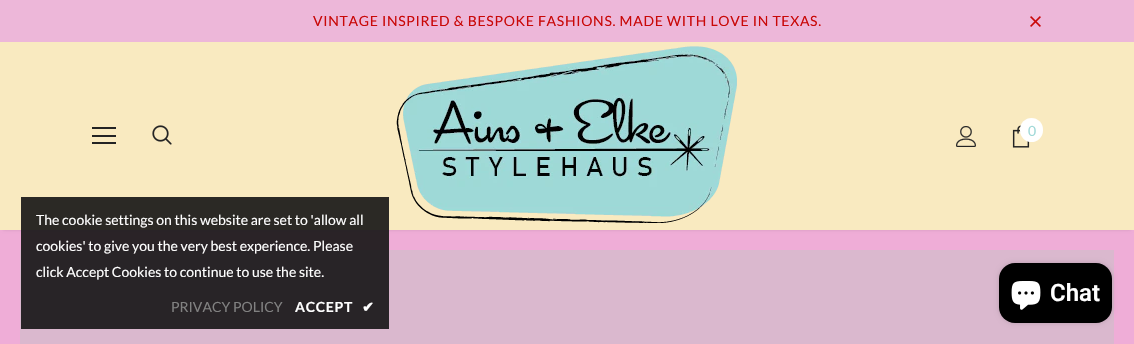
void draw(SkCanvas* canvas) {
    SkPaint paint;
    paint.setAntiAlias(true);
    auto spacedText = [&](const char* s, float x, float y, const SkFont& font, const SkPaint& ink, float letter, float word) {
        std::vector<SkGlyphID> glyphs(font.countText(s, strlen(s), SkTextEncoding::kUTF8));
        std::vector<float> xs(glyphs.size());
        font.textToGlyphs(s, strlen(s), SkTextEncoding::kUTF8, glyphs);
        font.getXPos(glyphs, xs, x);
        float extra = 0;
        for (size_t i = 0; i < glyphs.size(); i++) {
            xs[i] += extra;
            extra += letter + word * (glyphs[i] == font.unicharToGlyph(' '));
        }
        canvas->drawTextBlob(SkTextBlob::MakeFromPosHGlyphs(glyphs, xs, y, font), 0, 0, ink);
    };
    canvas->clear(0xFFEFADD7);
    paint.setColor(0xFFEDB7D9);
    canvas->drawRect(SkRect::MakeXYWH(0, 0, 1134, 42), paint);
    SkFont font1(fontMgr->matchFamilyStyle("Lato", SkFontStyle::Normal()), 14);
    font1.setSubpixel(true);
    paint.setColor(0xFFC90808);
    spacedText("VINTAGE INSPIRED & BESPOKE FASHIONS. MADE WITH LOVE IN TEXAS.", 313, 26, font1, paint, 0.7f, 0);
    canvas->drawImageRect(SkImages::DeferredFromEncodedData(SkData::MakeFromFileName("img1.png")), SkRect::MakeXYWH(1030, 16, 11, 11), SkSamplingOptions());
    paint.setColor(0x1F000000);
    paint.setMaskFilter(SkMaskFilter::MakeBlur(kNormal_SkBlurStyle, 1.5f));
    canvas->drawRect(SkRect::MakeXYWH(3, 48, 1128, 182), paint);
    paint.setMaskFilter(nullptr);
    paint.setColor(0xFFF9EAC0);
    canvas->drawRect(SkRect::MakeXYWH(0, 42, 1134, 188), paint);
    paint.setColor(0xFF232323);
    canvas->drawRect(SkRect::MakeXYWH(92, 127, 24, 2), paint);
    canvas->drawRect(SkRect::MakeXYWH(92, 135, 24, 2), paint);
    canvas->drawRect(SkRect::MakeXYWH(92, 142, 24, 2), paint);
    canvas->drawImageRect(SkImages::DeferredFromEncodedData(SkData::MakeFromFileName("img2.png")), SkRect::MakeXYWH(152, 125, 20, 20), SkSamplingOptions());
    canvas->drawImageRect(SkImages::DeferredFromEncodedData(SkData::MakeFromFileName("img3.png")), SkRect::MakeXYWH(396, 46, 341, 177), SkSamplingOptions());
    canvas->drawImageRect(SkImages::DeferredFromEncodedData(SkData::MakeFromFileName("img4.png")), SkRect::MakeXYWH(956, 126, 20, 21), SkSamplingOptions());
    canvas->drawImageRect(SkImages::DeferredFromEncodedData(SkData::MakeFromFileName("img5.png")), SkRect::MakeXYWH(1012, 125, 18, 23), SkSamplingOptions());
    paint.setColor(0xFFFFFFFF);
    canvas->drawRoundRect(SkRect::MakeXYWH(1020, 118, 23, 24), 11.5f, 11.5f, paint);
    paint.setColor(0xFFA0D9D8);
    canvas->drawString("0", 1028, 136, font1, paint);
    paint.setColor(0xFFDAB8CE);
    canvas->drawRect(SkRect::MakeXYWH(20, 250, 1094, 94), paint);
    paint.setColor(0xE6141414);
    canvas->drawRect(SkRect::MakeXYWH(21, 197, 368, 132), paint);
    paint.setColor(0xFFFFFFFF);
    canvas->drawString("The cookie settings on this website are set to 'allow all", 36, 225, font1, paint);
    canvas->drawString("cookies' to give you the very best experience. Please", 36, 251, font1, paint);
    canvas->drawString("click Accept Cookies to continue to use the site.", 36, 277, font1, paint);
    paint.setColor(0xFF818181);
    canvas->drawString("PRIVACY POLICY", 171, 312, font1, paint);
    SkFont font2(fontMgr->matchFamilyStyle("Lato", SkFontStyle::Bold()), 14);
    font2.setSubpixel(true);
    paint.setColor(0xFFFFFFFF);
    spacedText("ACCEPT", 295, 312, font2, paint, 0.7f, 0);
    SkFont font3(fontMgr->matchFamilyStyle("DejaVu Sans", SkFontStyle::Bold()), 14);
    font3.setSubpixel(true);
    spacedText("✔", 362, 312, font3, paint, 0.7f, 0);
    paint.setColor(0x26000000);
    paint.setMaskFilter(SkMaskFilter::MakeBlur(kNormal_SkBlurStyle, 2.5f));
    canvas->drawRoundRect(SkRect::MakeXYWH(999, 263, 113, 60), 16, 16, paint);
    paint.setMaskFilter(nullptr);
    paint.setColor(0xFF000000);
    canvas->drawRoundRect(SkRect::MakeXYWH(999, 263, 113, 60), 16, 16, paint);
    canvas->drawImageRect(SkImages::DeferredFromEncodedData(SkData::MakeFromFileName("img6.png")), SkRect::MakeXYWH(1011, 281, 30, 29), SkSamplingOptions());
    SkFont font4(fontMgr->matchFamilyStyle("Roboto", SkFontStyle(600, SkFontStyle::kNormal_Width, SkFontStyle::kUpright_Slant)), 24);
    font4.setSubpixel(true);
    paint.setColor(0xFFFFFFFF);
    canvas->drawString("Chat", 1050, 301, font4, paint);
}
